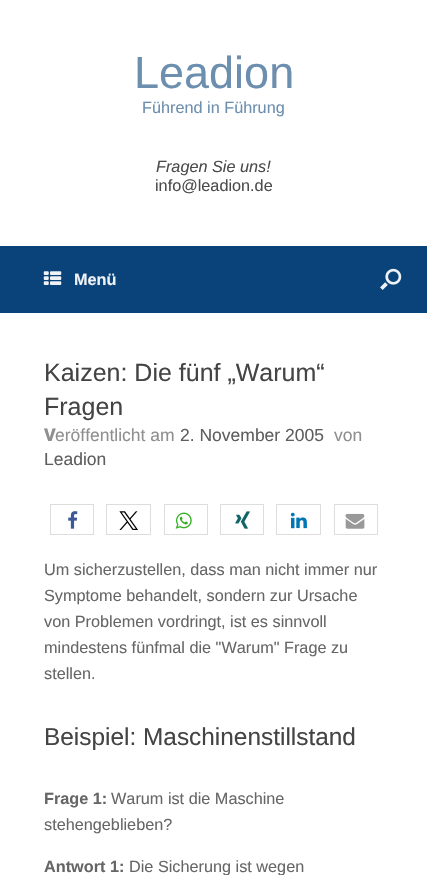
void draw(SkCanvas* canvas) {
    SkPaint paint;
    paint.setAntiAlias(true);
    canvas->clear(0xFFFFFFFF);
    SkFont font1(fontMgr->matchFamilyStyle("Liberation Sans", SkFontStyle::Normal()), 45);
    font1.setSubpixel(true);
    paint.setColor(0xFF6C8EAF);
    canvas->drawString("Leadion", 134, 88, font1, paint);
    SkFont font2(fontMgr->matchFamilyStyle("Liberation Sans", SkFontStyle::Normal()), 16.25f);
    font2.setSubpixel(true);
    canvas->drawString("Führend in Führung", 142, 113, font2, paint);
    SkFont font3(fontMgr->matchFamilyStyle("Liberation Sans", SkFontStyle::Italic()), 16.25f);
    font3.setSubpixel(true);
    paint.setColor(0xFF4B4B4B);
    canvas->drawString("Fragen Sie uns!", 156, 172, font3, paint);
    canvas->drawString("info@leadion.de", 155, 191, font2, paint);
    paint.setColor(0xFF0A4379);
    canvas->drawRect(SkRect::MakeXYWH(0, 246, 427, 67), paint);
    canvas->drawImageRect(SkImages::DeferredFromEncodedData(SkData::MakeFromFileName("img1.png")), SkRect::MakeXYWH(43, 271, 19, 14), SkSamplingOptions());
    SkFont font4(fontMgr->matchFamilyStyle("Liberation Sans", SkFontStyle::Bold()), 16.25f);
    font4.setSubpixel(true);
    paint.setColor(0xFFEEF2F6);
    canvas->drawString("Menü", 74, 285, font4, paint);
    canvas->drawImageRect(SkImages::DeferredFromEncodedData(SkData::MakeFromFileName("img2.png")), SkRect::MakeXYWH(380, 268, 22, 22), SkSamplingOptions());
    SkFont font5(fontMgr->matchFamilyStyle("Liberation Sans", SkFontStyle::Normal()), 25);
    font5.setSubpixel(true);
    paint.setColor(0xFF444444);
    canvas->drawString("Kaizen: Die fünf „Warum“", 44, 381, font5, paint);
    canvas->drawString("Fragen", 44, 415, font5, paint);
    SkFont font6(fontMgr->matchFamilyStyle("Noto Sans", SkFontStyle(800, SkFontStyle::kNormal_Width, SkFontStyle::kUpright_Slant)), 17.5f);
    font6.setSubpixel(true);
    paint.setColor(0xFF8F8F8F);
    canvas->drawString("V", 44, 441, font6, paint);
    SkFont font7(fontMgr->matchFamilyStyle("Liberation Sans", SkFontStyle::Normal()), 17.5f);
    font7.setSubpixel(true);
    canvas->drawString("eröffentlicht am", 55, 441, font7, paint);
    paint.setColor(0xFF5E5E5E);
    canvas->drawString("2. November 2005", 180, 441, font7, paint);
    paint.setColor(0xFF8F8F8F);
    canvas->drawString("von", 334, 441, font7, paint);
    paint.setColor(0xFF5E5E5E);
    canvas->drawString("Leadion", 44, 465, font7, paint);
    paint.setStyle(SkPaint::kStroke_Style);
    paint.setStrokeWidth(1);
    paint.setColor(0xFFDDDDDD);
    canvas->drawRect(SkRect::MakeXYWH(50.5f, 504.5f, 43, 30), paint);
    canvas->drawImageRect(SkImages::DeferredFromEncodedData(SkData::MakeFromFileName("img3.png")), SkRect::MakeXYWH(68, 511, 10, 18), SkSamplingOptions());
    canvas->drawRect(SkRect::MakeXYWH(106.5f, 504.5f, 44, 30), paint);
    canvas->drawImageRect(SkImages::DeferredFromEncodedData(SkData::MakeFromFileName("img4.png")), SkRect::MakeXYWH(119, 511, 19, 19), SkSamplingOptions());
    canvas->drawRect(SkRect::MakeXYWH(164.5f, 504.5f, 43, 30), paint);
    canvas->drawImageRect(SkImages::DeferredFromEncodedData(SkData::MakeFromFileName("img5.png")), SkRect::MakeXYWH(175, 512, 17, 17), SkSamplingOptions());
    canvas->drawRect(SkRect::MakeXYWH(220.5f, 504.5f, 43, 30), paint);
    canvas->drawImageRect(SkImages::DeferredFromEncodedData(SkData::MakeFromFileName("img6.png")), SkRect::MakeXYWH(235, 511, 15, 18), SkSamplingOptions());
    canvas->drawRect(SkRect::MakeXYWH(276.5f, 504.5f, 44, 30), paint);
    canvas->drawImageRect(SkImages::DeferredFromEncodedData(SkData::MakeFromFileName("img7.png")), SkRect::MakeXYWH(290, 512, 17, 17), SkSamplingOptions());
    canvas->drawRect(SkRect::MakeXYWH(334.5f, 504.5f, 43, 30), paint);
    canvas->drawImageRect(SkImages::DeferredFromEncodedData(SkData::MakeFromFileName("img8.png")), SkRect::MakeXYWH(345, 513, 20, 16), SkSamplingOptions());
    paint.setStyle(SkPaint::kFill_Style);
    paint.setColor(0xFF666666);
    canvas->drawString("Um sicherzustellen, dass man nicht immer nur", 44, 575, font2, paint);
    canvas->drawString("Symptome behandelt, sondern zur Ursache", 44, 601, font2, paint);
    canvas->drawString("von Problemen vordringt, ist es sinnvoll", 44, 627, font2, paint);
    canvas->drawString("mindestens fünfmal die \"Warum\" Frage zu", 44, 653, font2, paint);
    canvas->drawString("stellen.", 44, 679, font2, paint);
    SkFont font8(fontMgr->matchFamilyStyle("Liberation Sans", SkFontStyle::Normal()), 24.4f);
    font8.setSubpixel(true);
    paint.setColor(0xFF444444);
    canvas->drawString("Beispiel: Maschinenstillstand", 44, 745, font8, paint);
    paint.setColor(0xFF666666);
    canvas->drawString("Frage 1:", 44, 804, font4, paint);
    canvas->drawString("Warum ist die Maschine", 111, 804, font2, paint);
    canvas->drawString("stehengeblieben?", 44, 830, font2, paint);
    canvas->drawString("Antwort 1:", 44, 872, font4, paint);
    canvas->drawString("Die Sicherung ist wegen", 129, 872, font2, paint);
}
